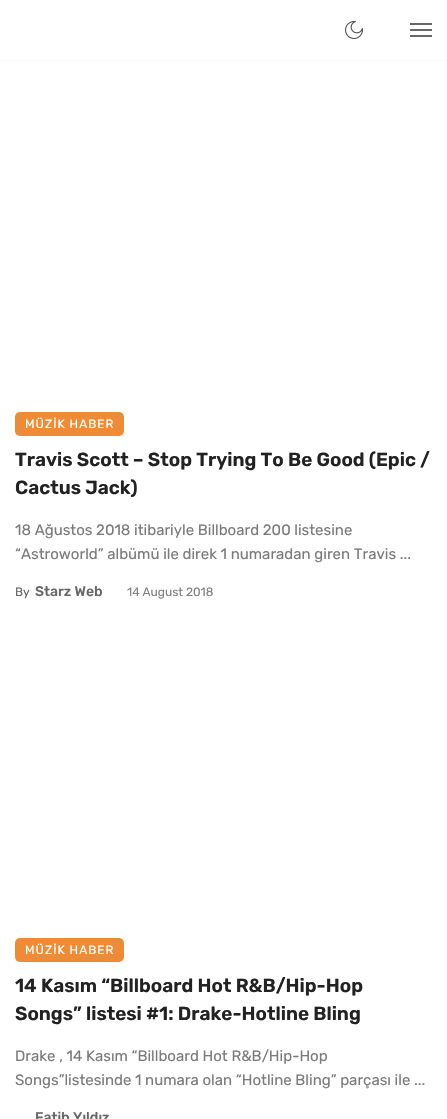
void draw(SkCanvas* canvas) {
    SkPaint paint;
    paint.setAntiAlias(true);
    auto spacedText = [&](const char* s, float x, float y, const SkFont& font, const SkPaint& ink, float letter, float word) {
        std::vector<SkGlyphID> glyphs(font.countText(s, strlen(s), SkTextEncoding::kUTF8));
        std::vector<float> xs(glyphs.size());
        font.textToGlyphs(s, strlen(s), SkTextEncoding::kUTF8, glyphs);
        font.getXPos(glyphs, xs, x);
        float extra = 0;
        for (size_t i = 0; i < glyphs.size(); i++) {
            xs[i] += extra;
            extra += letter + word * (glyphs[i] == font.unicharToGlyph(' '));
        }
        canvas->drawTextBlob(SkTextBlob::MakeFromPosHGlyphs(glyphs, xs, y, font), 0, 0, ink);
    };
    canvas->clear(0xFFFFFFFF);
    paint.setColor(0xFFF5F5F5);
    canvas->drawRect(SkRect::MakeXYWH(0, 60, 447, 1), paint);
    canvas->drawImageRect(SkImages::DeferredFromEncodedData(SkData::MakeFromFileName("img1.png")), SkRect::MakeXYWH(345, 21, 18, 18), SkSamplingOptions());
    paint.setColor(0xFF676767);
    canvas->drawRect(SkRect::MakeXYWH(410, 29, 22, 2), paint);
    canvas->drawRect(SkRect::MakeXYWH(410, 23, 22, 2), paint);
    canvas->drawRect(SkRect::MakeXYWH(410, 35, 22, 2), paint);
    paint.setColor(0xFFED8B36);
    canvas->drawRoundRect(SkRect::MakeXYWH(15, 412, 109, 24), 5, 5, paint);
    SkFont font1(fontMgr->matchFamilyStyle("Rubik", SkFontStyle::Normal()), 12);
    font1.setSubpixel(true);
    paint.setColor(0xFFFFFFFF);
    spacedText("MÜZİK HABER", 25, 428, font1, paint, 1, 0);
    SkFont font2(fontMgr->matchFamilyStyle("Rubik", SkFontStyle(600, SkFontStyle::kNormal_Width, SkFontStyle::kUpright_Slant)), 19);
    font2.setSubpixel(true);
    paint.setColor(0xFF222222);
    canvas->drawString("Travis Scott – Stop Trying To Be Good (Epic /", 15, 466, font2, paint);
    canvas->drawString("Cactus Jack)", 15, 494, font2, paint);
    SkFont font3(fontMgr->matchFamilyStyle("Rubik", SkFontStyle::Normal()), 15);
    font3.setSubpixel(true);
    paint.setColor(0xFF7A7A7A);
    canvas->drawString("18 Ağustos 2018 itibariyle Billboard 200 listesine", 15, 535, font3, paint);
    canvas->drawString("“Astroworld” albümü ile direk 1 numaradan giren Travis ...", 15, 559, font3, paint);
    paint.setColor(0xFF666666);
    canvas->drawString("By", 15, 596, font1, paint);
    SkFont font4(fontMgr->matchFamilyStyle("Rubik", SkFontStyle(500, SkFontStyle::kNormal_Width, SkFontStyle::kUpright_Slant)), 14);
    font4.setSubpixel(true);
    canvas->drawString("Starz Web", 35, 596, font4, paint);
    paint.setColor(0xFF808080);
    canvas->drawString("14 August 2018", 127, 596, font1, paint);
    paint.setColor(0xFFED8B36);
    canvas->drawRoundRect(SkRect::MakeXYWH(15, 938, 109, 24), 5, 5, paint);
    paint.setColor(0xFFFFFFFF);
    spacedText("MÜZİK HABER", 25, 954, font1, paint, 1, 0);
    paint.setColor(0xFF222222);
    canvas->drawString("14 Kasım “Billboard Hot R&B/Hip-Hop", 15, 992, font2, paint);
    canvas->drawString("Songs” listesi #1: Drake-Hotline Bling", 15, 1020, font2, paint);
    paint.setColor(0xFF7A7A7A);
    canvas->drawString("Drake , 14 Kasım “Billboard Hot R&B/Hip-Hop", 15, 1061, font3, paint);
    canvas->drawString("Songs”listesinde 1 numara olan “Hotline Bling” parçası ile ...", 15, 1085, font3, paint);
    paint.setColor(0xFF666666);
    canvas->drawString("Fatih Yıldız", 35, 1122, font4, paint);
}
